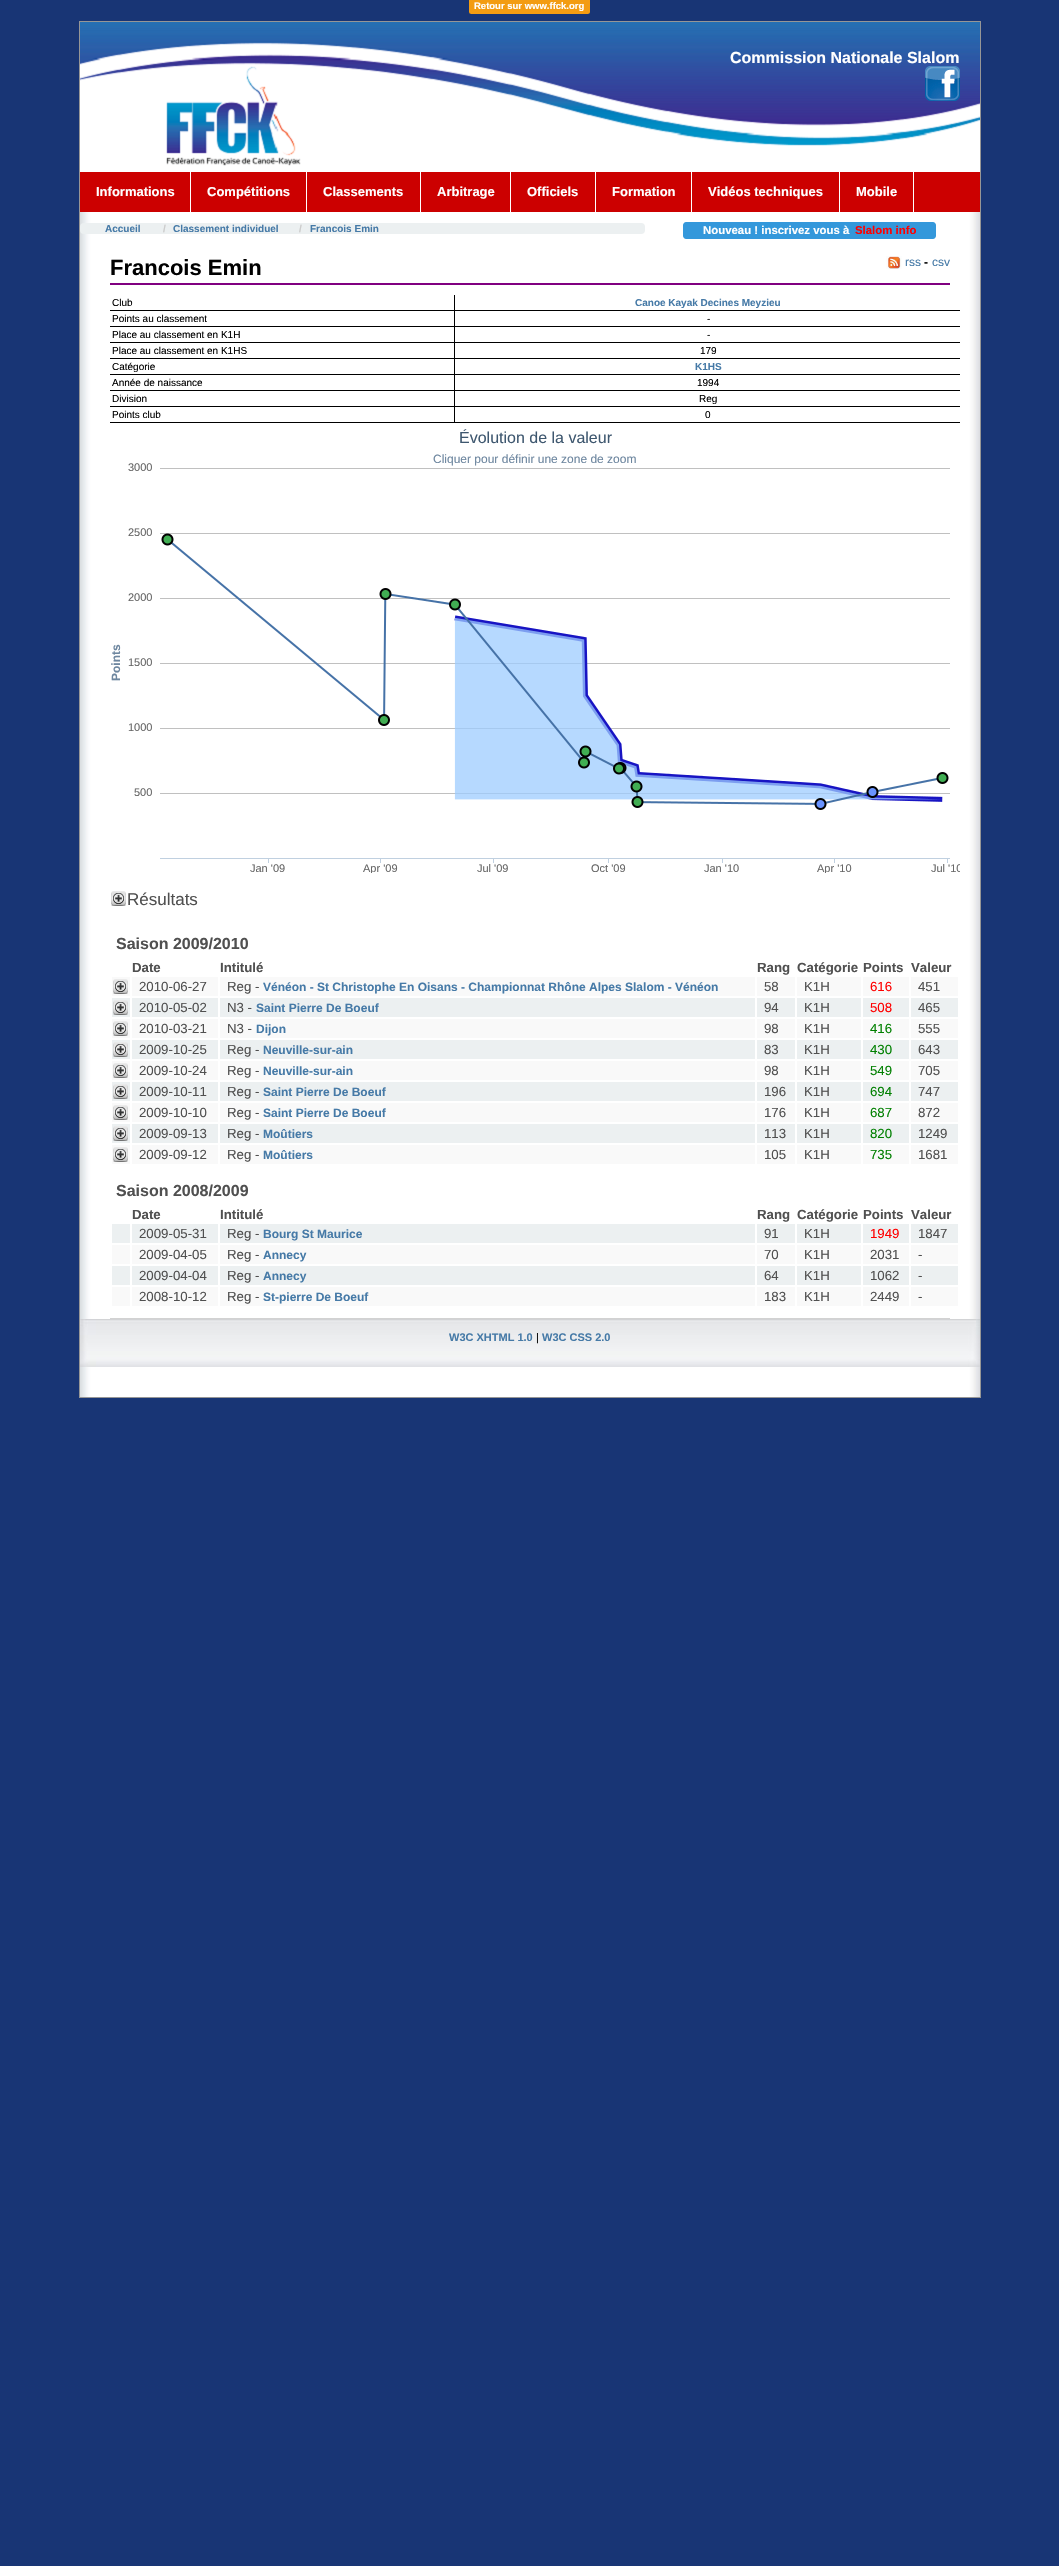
void draw(SkCanvas* canvas) {
    SkPaint paint;
    paint.setAntiAlias(true);
    canvas->clear(0xFF183575);
    paint.setColor(0xFFF39C12);
    canvas->drawRoundRect(SkRect::MakeXYWH(469, -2, 121, 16), 2.5f, 2.5f, paint);
    SkFont font1(fontMgr->matchFamilyStyle("Liberation Sans", SkFontStyle::Bold()), 9.5f);
    font1.setSubpixel(true);
    paint.setColor(0xFFFFFFFF);
    canvas->drawString("Retour sur www.ffck.org", 474, 9, font1, paint);
    paint.setStyle(SkPaint::kStroke_Style);
    paint.setStrokeWidth(1);
    paint.setColor(0xFF969696);
    canvas->drawRect(SkRect::MakeXYWH(79.5f, 21.5f, 901, 1376), paint);
    canvas->drawImageRect(SkImages::DeferredFromEncodedData(SkData::MakeFromFileName("img1.png")), SkRect::MakeXYWH(80, 22, 900, 150), SkSamplingOptions());
    SkFont font2(fontMgr->matchFamilyStyle("Liberation Sans", SkFontStyle::Bold()), 16);
    font2.setSubpixel(true);
    paint.setStyle(SkPaint::kFill_Style);
    paint.setColor(0xFFFFFFFF);
    canvas->drawString("Commission Nationale Slalom", 730, 63, font2, paint);
    canvas->drawImageRect(SkImages::DeferredFromEncodedData(SkData::MakeFromFileName("img2.png")), SkRect::MakeXYWH(925, 66, 35, 35), SkSamplingOptions());
    paint.setColor(0xFFCC0000);
    canvas->drawRect(SkRect::MakeXYWH(80, 172, 900, 40), paint);
    paint.setColor(0xFFFFFFFF);
    canvas->drawRect(SkRect::MakeXYWH(190, 172, 1, 40), paint);
    SkFont font3(fontMgr->matchFamilyStyle("Liberation Sans", SkFontStyle::Bold()), 13);
    font3.setSubpixel(true);
    canvas->drawString("Informations", 96, 196, font3, paint);
    canvas->drawRect(SkRect::MakeXYWH(306, 172, 1, 40), paint);
    canvas->drawString("Compétitions", 207, 196, font3, paint);
    canvas->drawRect(SkRect::MakeXYWH(420, 172, 1, 40), paint);
    canvas->drawString("Classements", 323, 196, font3, paint);
    canvas->drawRect(SkRect::MakeXYWH(510, 172, 1, 40), paint);
    canvas->drawString("Arbitrage", 437, 196, font3, paint);
    canvas->drawRect(SkRect::MakeXYWH(595, 172, 1, 40), paint);
    canvas->drawString("Officiels", 527, 196, font3, paint);
    canvas->drawRect(SkRect::MakeXYWH(691, 172, 1, 40), paint);
    canvas->drawString("Formation", 612, 196, font3, paint);
    canvas->drawRect(SkRect::MakeXYWH(839, 172, 1, 40), paint);
    canvas->drawString("Vidéos techniques", 708, 196, font3, paint);
    canvas->drawRect(SkRect::MakeXYWH(913, 172, 1, 40), paint);
    canvas->drawString("Mobile", 856, 196, font3, paint);
    canvas->drawImageRect(SkImages::DeferredFromEncodedData(SkData::MakeFromFileName("img3.png")), SkRect::MakeXYWH(80, 212, 900, 43), SkSamplingOptions());
    paint.setColor(0xFFECF0F1);
    canvas->drawRoundRect(SkRect::MakeXYWH(80, 223, 565, 11), 4, 4, paint);
    SkFont font4(fontMgr->matchFamilyStyle("Liberation Sans", SkFontStyle::Bold()), 10);
    font4.setSubpixel(true);
    paint.setColor(0xFF467AA7);
    canvas->drawString("Accueil", 105, 232, font4, paint);
    paint.setColor(0xFFCCCCCC);
    canvas->drawString("/", 163, 232, font4, paint);
    paint.setColor(0xFF467AA7);
    canvas->drawString("Classement individuel", 173, 232, font4, paint);
    paint.setColor(0xFFCCCCCC);
    canvas->drawString("/", 299, 232, font4, paint);
    paint.setColor(0xFF467AA7);
    canvas->drawString("Francois Emin", 310, 232, font4, paint);
    paint.setColor(0xFF3498DB);
    canvas->drawPath(SkPathBuilder().moveTo(686, 222).lineTo(855, 222).lineTo(855, 239).lineTo(686, 239).cubicTo(684.5f, 239, 683, 237.5f, 683, 236).lineTo(683, 225).cubicTo(683, 223.5f, 684.5f, 222, 686, 222).close().detach(), paint);
    SkFont font5(fontMgr->matchFamilyStyle("Liberation Sans", SkFontStyle::Bold()), 11.4f);
    font5.setSubpixel(true);
    paint.setColor(0xFFFFFFFF);
    canvas->drawString("Nouveau ! inscrivez vous à", 703, 234, font5, paint);
    paint.setColor(0xFF3498DB);
    canvas->drawRect(SkRect::MakeXYWH(855, 222, 61, 17), paint);
    canvas->drawPath(SkPathBuilder().moveTo(916, 222).lineTo(933, 222).cubicTo(934.5f, 222, 936, 223.5f, 936, 225).lineTo(936, 236).cubicTo(936, 237.5f, 934.5f, 239, 933, 239).lineTo(916, 239).close().detach(), paint);
    paint.setColor(0xFFFF0000);
    canvas->drawString("Slalom info", 855, 234, font5, paint);
    canvas->drawImageRect(SkImages::DeferredFromEncodedData(SkData::MakeFromFileName("img4.png")), SkRect::MakeXYWH(80, 255, 900, 1142), SkSamplingOptions());
    paint.setColor(0xFF800080);
    canvas->drawRect(SkRect::MakeXYWH(110, 283, 840, 2), paint);
    SkFont font6(fontMgr->matchFamilyStyle("Liberation Sans", SkFontStyle::Bold()), 22);
    font6.setSubpixel(true);
    paint.setColor(0xFF000000);
    canvas->drawString("Francois Emin", 110, 275, font6, paint);
    canvas->drawImageRect(SkImages::DeferredFromEncodedData(SkData::MakeFromFileName("img5.png")), SkRect::MakeXYWH(886, 256, 16, 13), SkSamplingOptions());
    SkFont font7(fontMgr->matchFamilyStyle("Liberation Sans", SkFontStyle::Normal()), 12);
    font7.setSubpixel(true);
    paint.setColor(0xFF467AA7);
    canvas->drawString("rss", 905, 266, font7, paint);
    SkFont font8(fontMgr->matchFamilyStyle("Liberation Sans", SkFontStyle::Bold()), 12);
    font8.setSubpixel(true);
    paint.setColor(0xFF000000);
    canvas->drawString("-", 924, 266, font8, paint);
    paint.setColor(0xFF467AA7);
    canvas->drawString("csv", 932, 266, font7, paint);
    paint.setColor(0xFF000000);
    canvas->drawRect(SkRect::MakeXYWH(110, 310, 850, 1), paint);
    canvas->drawRect(SkRect::MakeXYWH(110, 326, 850, 1), paint);
    canvas->drawRect(SkRect::MakeXYWH(110, 342, 850, 1), paint);
    canvas->drawRect(SkRect::MakeXYWH(110, 358, 850, 1), paint);
    canvas->drawRect(SkRect::MakeXYWH(110, 374, 850, 1), paint);
    canvas->drawRect(SkRect::MakeXYWH(110, 390, 850, 1), paint);
    canvas->drawRect(SkRect::MakeXYWH(110, 406, 850, 1), paint);
    canvas->drawRect(SkRect::MakeXYWH(110, 422, 850, 1), paint);
    canvas->drawRect(SkRect::MakeXYWH(454, 295, 1, 128), paint);
    SkFont font9(fontMgr->matchFamilyStyle("Liberation Sans", SkFontStyle::Normal()), 10);
    font9.setSubpixel(true);
    canvas->drawString("Club", 112, 306, font9, paint);
    paint.setColor(0xFF467AA7);
    canvas->drawString("Canoe Kayak Decines Meyzieu", 635, 306, font4, paint);
    paint.setColor(0xFF000000);
    canvas->drawString("Points au classement", 112, 322, font9, paint);
    canvas->drawString("-", 707, 322, font9, paint);
    canvas->drawString("Place au classement en K1H", 112, 338, font9, paint);
    canvas->drawString("-", 707, 338, font9, paint);
    canvas->drawString("Place au classement en K1HS", 112, 354, font9, paint);
    canvas->drawString("179", 700, 354, font9, paint);
    canvas->drawString("Catégorie", 112, 370, font9, paint);
    paint.setColor(0xFF467AA7);
    canvas->drawString("K1HS", 695, 370, font4, paint);
    paint.setColor(0xFF000000);
    canvas->drawString("Année de naissance", 112, 386, font9, paint);
    canvas->drawString("1994", 697, 386, font9, paint);
    canvas->drawString("Division", 112, 402, font9, paint);
    canvas->drawString("Reg", 699, 402, font9, paint);
    canvas->drawString("Points club", 112, 418, font9, paint);
    canvas->drawString("0", 705, 418, font9, paint);
    SkFont font10(fontMgr->matchFamilyStyle("Liberation Sans", SkFontStyle::Normal()), 16);
    font10.setSubpixel(true);
    paint.setColor(0xFF3E576F);
    canvas->drawString("Évolution de la valeur", 459, 443, font10, paint);
    paint.setColor(0xFF6D869F);
    canvas->drawString("Cliquer pour définir une zone de zoom", 433, 463, font7, paint);
    SkFont font11(fontMgr->matchFamilyStyle("Liberation Sans", SkFontStyle::Normal()), 11);
    font11.setSubpixel(true);
    paint.setColor(0xFF666666);
    canvas->drawString("3000", 128, 471, font11, paint);
    canvas->drawImageRect(SkImages::DeferredFromEncodedData(SkData::MakeFromFileName("img6.png")), SkRect::MakeXYWH(160, 468, 790, 395), SkSamplingOptions());
    canvas->drawString("2500", 128, 536, font11, paint);
    canvas->drawString("2000", 128, 601, font11, paint);
    paint.setColor(0xFF6D869F);
    canvas->save();
    canvas->rotate(-90, 120, 681);
    canvas->drawString("Points", 120, 681, font8, paint);
    canvas->restore();
    paint.setColor(0xFF666666);
    canvas->drawString("1500", 128, 666, font11, paint);
    canvas->drawString("1000", 128, 731, font11, paint);
    canvas->drawString("500", 134, 796, font11, paint);
    canvas->drawString("Jan '09", 250, 872, font11, paint);
    canvas->save();
    canvas->clipRect(SkRect::MakeXYWH(110, 423, 850, 450));
    canvas->drawString("Apr '09", 363, 872, font11, paint);
    canvas->restore();
    canvas->drawString("Jul '09", 477, 872, font11, paint);
    canvas->drawString("Oct '09", 591, 872, font11, paint);
    canvas->drawString("Jan '10", 704, 872, font11, paint);
    canvas->save();
    canvas->clipRect(SkRect::MakeXYWH(110, 423, 850, 450));
    canvas->drawString("Apr '10", 817, 872, font11, paint);
    canvas->drawString("Jul '10", 931, 872, font11, paint);
    canvas->restore();
    canvas->drawImageRect(SkImages::DeferredFromEncodedData(SkData::MakeFromFileName("img7.png")), SkRect::MakeXYWH(111, 891, 15, 15), SkSamplingOptions());
    SkFont font12(fontMgr->matchFamilyStyle("Liberation Sans", SkFontStyle::Normal()), 17);
    font12.setSubpixel(true);
    paint.setColor(0xFF505050);
    canvas->drawString("Résultats", 127, 905, font12, paint);
    canvas->drawString("Saison 2009/2010", 116, 949, font2, paint);
    SkFont font13(fontMgr->matchFamilyStyle("Liberation Sans", SkFontStyle::Bold()), 13.25f);
    font13.setSubpixel(true);
    canvas->drawString("Date", 132, 972, font13, paint);
    canvas->drawString("Intitulé", 220, 972, font13, paint);
    canvas->drawString("Rang", 757, 972, font13, paint);
    canvas->drawString("Catégorie", 797, 972, font13, paint);
    canvas->drawString("Points", 863, 972, font13, paint);
    canvas->drawString("Valeur", 911, 972, font13, paint);
    paint.setColor(0xFFF9F9F9);
    canvas->drawRect(SkRect::MakeXYWH(112, 977, 846, 19), paint);
    canvas->drawImageRect(SkImages::DeferredFromEncodedData(SkData::MakeFromFileName("img8.png")), SkRect::MakeXYWH(113, 979, 15, 15), SkSamplingOptions());
    SkFont font14(fontMgr->matchFamilyStyle("Liberation Sans", SkFontStyle::Normal()), 13.25f);
    font14.setSubpixel(true);
    paint.setColor(0xFF505050);
    canvas->drawString("2010-06-27", 139, 991, font14, paint);
    canvas->drawString("Reg -", 227, 991, font14, paint);
    paint.setColor(0xFF467AA7);
    canvas->drawString("Vénéon - St Christophe En Oisans - Championnat Rhône Alpes Slalom - Vénéon", 263, 991, font8, paint);
    paint.setColor(0xFF505050);
    canvas->drawString("58", 764, 991, font14, paint);
    canvas->drawString("K1H", 804, 991, font14, paint);
    paint.setColor(0xFFFF0000);
    canvas->drawString("616", 870, 991, font14, paint);
    paint.setColor(0xFF505050);
    canvas->drawString("451", 918, 991, font14, paint);
    paint.setColor(0xFFECF0F1);
    canvas->drawRect(SkRect::MakeXYWH(112, 998, 846, 19), paint);
    canvas->drawImageRect(SkImages::DeferredFromEncodedData(SkData::MakeFromFileName("img9.png")), SkRect::MakeXYWH(113, 1000, 15, 15), SkSamplingOptions());
    paint.setColor(0xFF505050);
    canvas->drawString("2010-05-02", 139, 1012, font14, paint);
    canvas->drawString("N3 -", 227, 1012, font14, paint);
    paint.setColor(0xFF467AA7);
    canvas->drawString("Saint Pierre De Boeuf", 256, 1012, font8, paint);
    paint.setColor(0xFF505050);
    canvas->drawString("94", 764, 1012, font14, paint);
    canvas->drawString("K1H", 804, 1012, font14, paint);
    paint.setColor(0xFFFF0000);
    canvas->drawString("508", 870, 1012, font14, paint);
    paint.setColor(0xFF505050);
    canvas->drawString("465", 918, 1012, font14, paint);
    paint.setColor(0xFFF9F9F9);
    canvas->drawRect(SkRect::MakeXYWH(112, 1019, 846, 19), paint);
    canvas->drawImageRect(SkImages::DeferredFromEncodedData(SkData::MakeFromFileName("img10.png")), SkRect::MakeXYWH(113, 1021, 15, 15), SkSamplingOptions());
    paint.setColor(0xFF505050);
    canvas->drawString("2010-03-21", 139, 1033, font14, paint);
    canvas->drawString("N3 -", 227, 1033, font14, paint);
    paint.setColor(0xFF467AA7);
    canvas->drawString("Dijon", 256, 1033, font8, paint);
    paint.setColor(0xFF505050);
    canvas->drawString("98", 764, 1033, font14, paint);
    canvas->drawString("K1H", 804, 1033, font14, paint);
    paint.setColor(0xFF008000);
    canvas->drawString("416", 870, 1033, font14, paint);
    paint.setColor(0xFF505050);
    canvas->drawString("555", 918, 1033, font14, paint);
    paint.setColor(0xFFECF0F1);
    canvas->drawRect(SkRect::MakeXYWH(112, 1040, 846, 19), paint);
    canvas->drawImageRect(SkImages::DeferredFromEncodedData(SkData::MakeFromFileName("img11.png")), SkRect::MakeXYWH(113, 1042, 15, 15), SkSamplingOptions());
    paint.setColor(0xFF505050);
    canvas->drawString("2009-10-25", 139, 1054, font14, paint);
    canvas->drawString("Reg -", 227, 1054, font14, paint);
    paint.setColor(0xFF467AA7);
    canvas->drawString("Neuville-sur-ain", 263, 1054, font8, paint);
    paint.setColor(0xFF505050);
    canvas->drawString("83", 764, 1054, font14, paint);
    canvas->drawString("K1H", 804, 1054, font14, paint);
    paint.setColor(0xFF008000);
    canvas->drawString("430", 870, 1054, font14, paint);
    paint.setColor(0xFF505050);
    canvas->drawString("643", 918, 1054, font14, paint);
    paint.setColor(0xFFF9F9F9);
    canvas->drawRect(SkRect::MakeXYWH(112, 1061, 846, 19), paint);
    canvas->drawImageRect(SkImages::DeferredFromEncodedData(SkData::MakeFromFileName("img8.png")), SkRect::MakeXYWH(113, 1063, 15, 15), SkSamplingOptions());
    paint.setColor(0xFF505050);
    canvas->drawString("2009-10-24", 139, 1075, font14, paint);
    canvas->drawString("Reg -", 227, 1075, font14, paint);
    paint.setColor(0xFF467AA7);
    canvas->drawString("Neuville-sur-ain", 263, 1075, font8, paint);
    paint.setColor(0xFF505050);
    canvas->drawString("98", 764, 1075, font14, paint);
    canvas->drawString("K1H", 804, 1075, font14, paint);
    paint.setColor(0xFF008000);
    canvas->drawString("549", 870, 1075, font14, paint);
    paint.setColor(0xFF505050);
    canvas->drawString("705", 918, 1075, font14, paint);
    paint.setColor(0xFFECF0F1);
    canvas->drawRect(SkRect::MakeXYWH(112, 1082, 846, 19), paint);
    canvas->drawImageRect(SkImages::DeferredFromEncodedData(SkData::MakeFromFileName("img9.png")), SkRect::MakeXYWH(113, 1084, 15, 15), SkSamplingOptions());
    paint.setColor(0xFF505050);
    canvas->drawString("2009-10-11", 139, 1096, font14, paint);
    canvas->drawString("Reg -", 227, 1096, font14, paint);
    paint.setColor(0xFF467AA7);
    canvas->drawString("Saint Pierre De Boeuf", 263, 1096, font8, paint);
    paint.setColor(0xFF505050);
    canvas->drawString("196", 764, 1096, font14, paint);
    canvas->drawString("K1H", 804, 1096, font14, paint);
    paint.setColor(0xFF008000);
    canvas->drawString("694", 870, 1096, font14, paint);
    paint.setColor(0xFF505050);
    canvas->drawString("747", 918, 1096, font14, paint);
    paint.setColor(0xFFF9F9F9);
    canvas->drawRect(SkRect::MakeXYWH(112, 1103, 846, 19), paint);
    canvas->drawImageRect(SkImages::DeferredFromEncodedData(SkData::MakeFromFileName("img8.png")), SkRect::MakeXYWH(113, 1105, 15, 15), SkSamplingOptions());
    paint.setColor(0xFF505050);
    canvas->drawString("2009-10-10", 139, 1117, font14, paint);
    canvas->drawString("Reg -", 227, 1117, font14, paint);
    paint.setColor(0xFF467AA7);
    canvas->drawString("Saint Pierre De Boeuf", 263, 1117, font8, paint);
    paint.setColor(0xFF505050);
    canvas->drawString("176", 764, 1117, font14, paint);
    canvas->drawString("K1H", 804, 1117, font14, paint);
    paint.setColor(0xFF008000);
    canvas->drawString("687", 870, 1117, font14, paint);
    paint.setColor(0xFF505050);
    canvas->drawString("872", 918, 1117, font14, paint);
    paint.setColor(0xFFECF0F1);
    canvas->drawRect(SkRect::MakeXYWH(112, 1124, 846, 19), paint);
    canvas->drawImageRect(SkImages::DeferredFromEncodedData(SkData::MakeFromFileName("img9.png")), SkRect::MakeXYWH(113, 1126, 15, 15), SkSamplingOptions());
    paint.setColor(0xFF505050);
    canvas->drawString("2009-09-13", 139, 1138, font14, paint);
    canvas->drawString("Reg -", 227, 1138, font14, paint);
    paint.setColor(0xFF467AA7);
    canvas->drawString("Moûtiers", 263, 1138, font8, paint);
    paint.setColor(0xFF505050);
    canvas->drawString("113", 764, 1138, font14, paint);
    canvas->drawString("K1H", 804, 1138, font14, paint);
    paint.setColor(0xFF008000);
    canvas->drawString("820", 870, 1138, font14, paint);
    paint.setColor(0xFF505050);
    canvas->drawString("1249", 918, 1138, font14, paint);
    paint.setColor(0xFFF9F9F9);
    canvas->drawRect(SkRect::MakeXYWH(112, 1145, 846, 19), paint);
    canvas->drawImageRect(SkImages::DeferredFromEncodedData(SkData::MakeFromFileName("img8.png")), SkRect::MakeXYWH(113, 1147, 15, 15), SkSamplingOptions());
    paint.setColor(0xFFFFFFFF);
    canvas->drawRect(SkRect::MakeXYWH(130, 975, 2, 191), paint);
    paint.setColor(0xFF505050);
    canvas->drawString("2009-09-12", 139, 1159, font14, paint);
    paint.setColor(0xFFFFFFFF);
    canvas->drawRect(SkRect::MakeXYWH(218, 975, 2, 191), paint);
    paint.setColor(0xFF505050);
    canvas->drawString("Reg -", 227, 1159, font14, paint);
    paint.setColor(0xFF467AA7);
    canvas->drawString("Moûtiers", 263, 1159, font8, paint);
    paint.setColor(0xFFFFFFFF);
    canvas->drawRect(SkRect::MakeXYWH(755, 975, 2, 191), paint);
    paint.setColor(0xFF505050);
    canvas->drawString("105", 764, 1159, font14, paint);
    paint.setColor(0xFFFFFFFF);
    canvas->drawRect(SkRect::MakeXYWH(795, 975, 2, 191), paint);
    paint.setColor(0xFF505050);
    canvas->drawString("K1H", 804, 1159, font14, paint);
    paint.setColor(0xFFFFFFFF);
    canvas->drawRect(SkRect::MakeXYWH(861, 975, 2, 191), paint);
    paint.setColor(0xFF008000);
    canvas->drawString("735", 870, 1159, font14, paint);
    paint.setColor(0xFFFFFFFF);
    canvas->drawRect(SkRect::MakeXYWH(909, 975, 2, 191), paint);
    paint.setColor(0xFF505050);
    canvas->drawString("1681", 918, 1159, font14, paint);
    canvas->drawString("Saison 2008/2009", 116, 1196, font2, paint);
    canvas->drawString("Date", 132, 1219, font13, paint);
    canvas->drawString("Intitulé", 220, 1219, font13, paint);
    canvas->drawString("Rang", 757, 1219, font13, paint);
    canvas->drawString("Catégorie", 797, 1219, font13, paint);
    canvas->drawString("Points", 863, 1219, font13, paint);
    canvas->drawString("Valeur", 911, 1219, font13, paint);
    paint.setColor(0xFFECF0F1);
    canvas->drawRect(SkRect::MakeXYWH(112, 1224, 846, 19), paint);
    paint.setColor(0xFF505050);
    canvas->drawString("2009-05-31", 139, 1238, font14, paint);
    canvas->drawString("Reg -", 227, 1238, font14, paint);
    paint.setColor(0xFF467AA7);
    canvas->drawString("Bourg St Maurice", 263, 1238, font8, paint);
    paint.setColor(0xFF505050);
    canvas->drawString("91", 764, 1238, font14, paint);
    canvas->drawString("K1H", 804, 1238, font14, paint);
    paint.setColor(0xFFFF0000);
    canvas->drawString("1949", 870, 1238, font14, paint);
    paint.setColor(0xFF505050);
    canvas->drawString("1847", 918, 1238, font14, paint);
    paint.setColor(0xFFF9F9F9);
    canvas->drawRect(SkRect::MakeXYWH(112, 1245, 846, 19), paint);
    paint.setColor(0xFF505050);
    canvas->drawString("2009-04-05", 139, 1259, font14, paint);
    canvas->drawString("Reg -", 227, 1259, font14, paint);
    paint.setColor(0xFF467AA7);
    canvas->drawString("Annecy", 263, 1259, font8, paint);
    paint.setColor(0xFF505050);
    canvas->drawString("70", 764, 1259, font14, paint);
    canvas->drawString("K1H", 804, 1259, font14, paint);
    canvas->drawString("2031", 870, 1259, font14, paint);
    canvas->drawString("-", 918, 1259, font14, paint);
    paint.setColor(0xFFECF0F1);
    canvas->drawRect(SkRect::MakeXYWH(112, 1266, 846, 19), paint);
    paint.setColor(0xFF505050);
    canvas->drawString("2009-04-04", 139, 1280, font14, paint);
    canvas->drawString("Reg -", 227, 1280, font14, paint);
    paint.setColor(0xFF467AA7);
    canvas->drawString("Annecy", 263, 1280, font8, paint);
    paint.setColor(0xFF505050);
    canvas->drawString("64", 764, 1280, font14, paint);
    canvas->drawString("K1H", 804, 1280, font14, paint);
    canvas->drawString("1062", 870, 1280, font14, paint);
    canvas->drawString("-", 918, 1280, font14, paint);
    paint.setColor(0xFFF9F9F9);
    canvas->drawRect(SkRect::MakeXYWH(112, 1287, 846, 19), paint);
    paint.setColor(0xFFFFFFFF);
    canvas->drawRect(SkRect::MakeXYWH(130, 1222, 2, 86), paint);
    paint.setColor(0xFF505050);
    canvas->drawString("2008-10-12", 139, 1301, font14, paint);
    paint.setColor(0xFFFFFFFF);
    canvas->drawRect(SkRect::MakeXYWH(218, 1222, 2, 86), paint);
    paint.setColor(0xFF505050);
    canvas->drawString("Reg -", 227, 1301, font14, paint);
    paint.setColor(0xFF467AA7);
    canvas->drawString("St-pierre De Boeuf", 263, 1301, font8, paint);
    paint.setColor(0xFFFFFFFF);
    canvas->drawRect(SkRect::MakeXYWH(755, 1222, 2, 86), paint);
    paint.setColor(0xFF505050);
    canvas->drawString("183", 764, 1301, font14, paint);
    paint.setColor(0xFFFFFFFF);
    canvas->drawRect(SkRect::MakeXYWH(795, 1222, 2, 86), paint);
    paint.setColor(0xFF505050);
    canvas->drawString("K1H", 804, 1301, font14, paint);
    paint.setColor(0xFFFFFFFF);
    canvas->drawRect(SkRect::MakeXYWH(861, 1222, 2, 86), paint);
    paint.setColor(0xFF505050);
    canvas->drawString("2449", 870, 1301, font14, paint);
    paint.setColor(0xFFFFFFFF);
    canvas->drawRect(SkRect::MakeXYWH(909, 1222, 2, 86), paint);
    paint.setColor(0xFF505050);
    canvas->drawString("-", 918, 1301, font14, paint);
    paint.setColor(0xFFD2D2D2);
    canvas->drawRect(SkRect::MakeXYWH(110, 1318, 840, 1), paint);
    canvas->drawImageRect(SkImages::DeferredFromEncodedData(SkData::MakeFromFileName("img12.png")), SkRect::MakeXYWH(80, 1319, 900, 48), SkSamplingOptions());
    SkFont font15(fontMgr->matchFamilyStyle("Liberation Sans", SkFontStyle::Bold()), 11);
    font15.setSubpixel(true);
    paint.setColor(0xFF467AA7);
    canvas->drawString("W3C XHTML 1.0", 449, 1341, font15, paint);
    paint.setColor(0xFF000000);
    canvas->drawString("|", 536, 1341, font11, paint);
    paint.setColor(0xFF467AA7);
    canvas->drawString("W3C CSS 2.0", 542, 1341, font15, paint);
}
